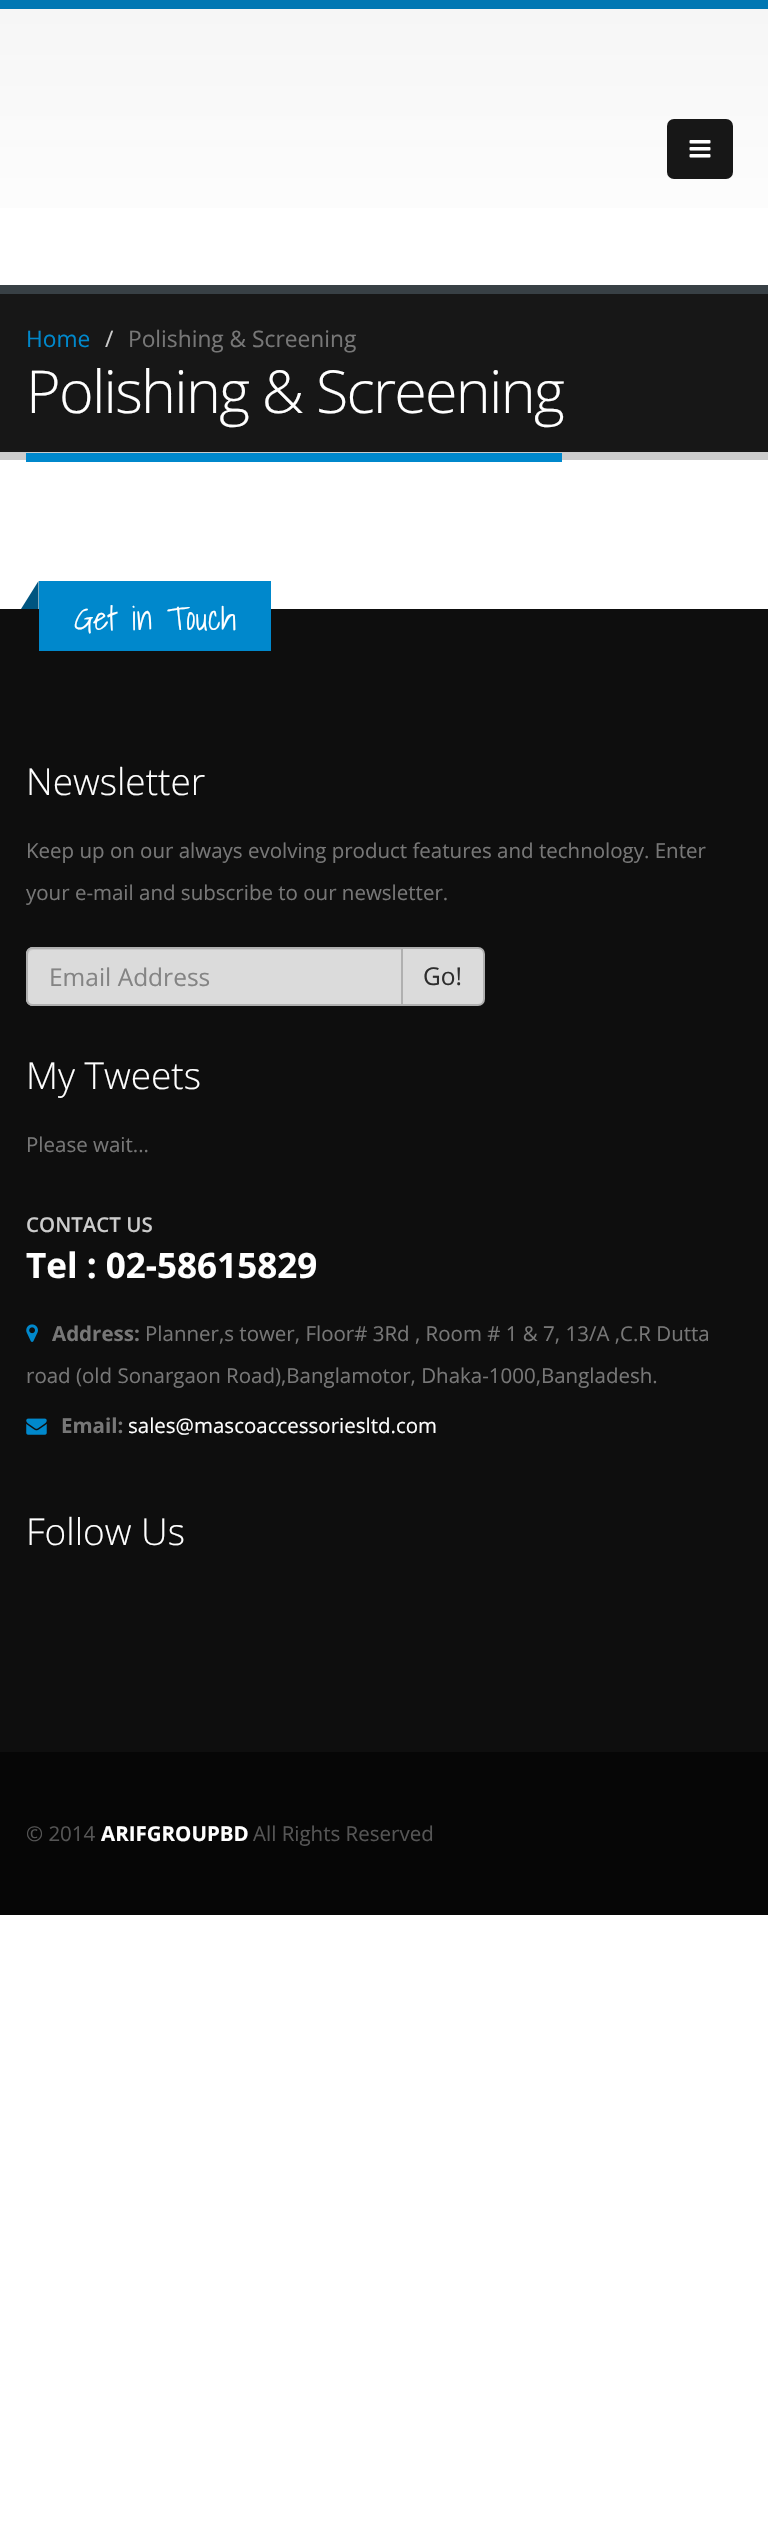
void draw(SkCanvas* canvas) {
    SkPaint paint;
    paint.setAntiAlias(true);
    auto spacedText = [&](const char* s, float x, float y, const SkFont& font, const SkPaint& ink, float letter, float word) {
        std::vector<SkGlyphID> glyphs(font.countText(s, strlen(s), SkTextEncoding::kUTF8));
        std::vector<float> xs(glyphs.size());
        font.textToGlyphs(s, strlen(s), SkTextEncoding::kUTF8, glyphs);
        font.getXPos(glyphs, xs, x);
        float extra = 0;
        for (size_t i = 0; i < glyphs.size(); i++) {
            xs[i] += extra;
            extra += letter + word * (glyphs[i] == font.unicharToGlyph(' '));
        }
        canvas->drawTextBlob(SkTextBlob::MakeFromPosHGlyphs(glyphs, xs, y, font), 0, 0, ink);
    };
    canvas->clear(0xFFFFFFFF);
    {
        const SkColor colors[] = {0xFFF6F6F6, 0xFFFFFFFF};
        const float stops[] = {0, 1};
        const SkPoint ends[] = {{384, 9}, {384, 285}};
        paint.setShader(SkGradientShader::MakeLinear(ends, colors, stops, 2, SkTileMode::kClamp));
        paint.setAlpha(255);
    }
    canvas->drawRect(SkRect::MakeXYWH(0, 9, 768, 199), paint);
    paint.setShader(nullptr);
    paint.setColor(0xFF0077B3);
    canvas->drawRect(SkRect::MakeXYWH(0, 0, 768, 9), paint);
    paint.setColor(0xFF171717);
    canvas->drawRoundRect(SkRect::MakeXYWH(667, 119, 66, 60), 7, 7, paint);
    canvas->drawImageRect(SkImages::DeferredFromEncodedData(SkData::MakeFromFileName("img1.png")), SkRect::MakeXYWH(689, 140, 22, 18), SkSamplingOptions());
    canvas->drawRect(SkRect::MakeXYWH(0, 294, 768, 158), paint);
    paint.setColor(0xFF384045);
    canvas->drawRect(SkRect::MakeXYWH(0, 285, 768, 9), paint);
    paint.setColor(0xFFCCCCCC);
    canvas->drawRect(SkRect::MakeXYWH(0, 452, 768, 8), paint);
    SkFont font1(fontMgr->matchFamilyStyle("Open Sans", SkFontStyle::Normal()), 22.75f);
    font1.setSubpixel(true);
    paint.setColor(0xFF0088CC);
    canvas->drawString("Home", 26, 347, font1, paint);
    paint.setColor(0xFFCCCCCC);
    canvas->drawString("/", 105, 347, font1, paint);
    paint.setColor(0xFF777777);
    canvas->drawString("Polishing & Screening", 128, 347, font1, paint);
    paint.setColor(0xFF0088CC);
    canvas->drawRect(SkRect::MakeXYWH(26, 453, 536, 9), paint);
    SkFont font2(fontMgr->matchFamilyStyle("Open Sans", SkFontStyle(300, SkFontStyle::kNormal_Width, SkFontStyle::kUpright_Slant)), 59.25f);
    font2.setSubpixel(true);
    paint.setColor(0xFFFFFFFF);
    spacedText("Polishing & Screening", 26, 413, font2, paint, -1.75f, 0);
    paint.setColor(0xFF0E0E0E);
    canvas->drawRect(SkRect::MakeXYWH(0, 609, 768, 1143), paint);
    paint.setColor(0xFF0088CC);
    canvas->drawRect(SkRect::MakeXYWH(39, 581, 232, 70), paint);
    paint.setColor(0xFF005580);
    canvas->drawPath(SkPathBuilder().moveTo(38.5f, 581).lineTo(38.5f, 609).lineTo(21, 609).close().detach(), paint);
    SkFont font3(fontMgr->matchFamilyStyle("Shadows Into Light", SkFontStyle(300, SkFontStyle::kNormal_Width, SkFontStyle::kUpright_Slant)), 32.75f);
    font3.setSubpixel(true);
    paint.setColor(0xFFFFFFFF);
    canvas->drawString("Get in Touch", 74, 630, font3, paint);
    SkFont font4(fontMgr->matchFamilyStyle("Open Sans", SkFontStyle(300, SkFontStyle::kNormal_Width, SkFontStyle::kUpright_Slant)), 37);
    font4.setSubpixel(true);
    canvas->drawString("Newsletter", 26, 795, font4, paint);
    SkFont font5(fontMgr->matchFamilyStyle("Open Sans", SkFontStyle::Normal()), 20.5f);
    font5.setSubpixel(true);
    paint.setColor(0xFF777777);
    canvas->drawString("Keep up on our always evolving product features and technology. Enter", 26, 858, font5, paint);
    canvas->drawString("your e-mail and subscribe to our newsletter.", 26, 900, font5, paint);
    paint.setColor(0xFFDBDBDB);
    canvas->drawPath(SkPathBuilder().moveTo(402, 948).lineTo(478, 948).cubicTo(481.5f, 948, 484, 950.5f, 484, 954).lineTo(484, 999).cubicTo(484, 1002.5f, 481.5f, 1005, 478, 1005).lineTo(402, 1005).close().detach(), paint);
    paint.setStyle(SkPaint::kStroke_Style);
    paint.setStrokeWidth(2);
    paint.setColor(0xFFB0B0B0);
    canvas->drawPath(SkPathBuilder().moveTo(402, 948).lineTo(478, 948).cubicTo(481.5f, 948, 484, 950.5f, 484, 954).lineTo(484, 999).cubicTo(484, 1002.5f, 481.5f, 1005, 478, 1005).lineTo(402, 1005).close().detach(), paint);
    paint.setStyle(SkPaint::kFill_Style);
    paint.setColor(0xFFDBDBDB);
    canvas->drawPath(SkPathBuilder().moveTo(33, 947).lineTo(403, 947).lineTo(403, 1006).lineTo(33, 1006).cubicTo(29, 1006, 26, 1003, 26, 999).lineTo(26, 954).cubicTo(26, 950, 29, 947, 33, 947).close().detach(), paint);
    paint.setColor(0xFFCBCBCB);
    canvas->drawPath(SkPathBuilder().moveTo(33, 950).lineTo(401, 950).lineTo(401, 949).lineTo(33, 949).cubicTo(30, 949, 28, 951, 28, 954).lineTo(28, 956).cubicTo(28, 953, 30, 950, 33, 950).close().detach(), paint);
    paint.setStyle(SkPaint::kStroke_Style);
    paint.setColor(0xFFB0B0B0);
    canvas->drawPath(SkPathBuilder().moveTo(33, 948).lineTo(402, 948).lineTo(402, 1005).lineTo(33, 1005).cubicTo(29.5f, 1005, 27, 1002.5f, 27, 999).lineTo(27, 954).cubicTo(27, 950.5f, 29.5f, 948, 33, 948).close().detach(), paint);
    SkFont font6(fontMgr->matchFamilyStyle("Open Sans", SkFontStyle::Normal()), 24.5f);
    font6.setSubpixel(true);
    paint.setStyle(SkPaint::kFill_Style);
    paint.setColor(0xFF848484);
    canvas->drawString("Email Address", 49, 986, font6, paint);
    paint.setColor(0xFF2D2D2D);
    canvas->drawString("Go!", 423, 985, font6, paint);
    paint.setColor(0xFFFFFFFF);
    canvas->drawString("My Tweets", 26, 1089, font4, paint);
    paint.setColor(0xFF777777);
    canvas->drawString("Please wait...", 26, 1152, font5, paint);
    SkFont font7(fontMgr->matchFamilyStyle("Open Sans", SkFontStyle(600, SkFontStyle::kNormal_Width, SkFontStyle::kUpright_Slant)), 20.5f);
    font7.setSubpixel(true);
    paint.setColor(0xFFCCCCCC);
    canvas->drawString("CONTACT US", 26, 1232, font7, paint);
    SkFont font8(fontMgr->matchFamilyStyle("Open Sans", SkFontStyle::Bold()), 35);
    font8.setSubpixel(true);
    paint.setColor(0xFFFFFFFF);
    canvas->drawString("Tel : 02-58615829", 26, 1278, font8, paint);
    canvas->drawImageRect(SkImages::DeferredFromEncodedData(SkData::MakeFromFileName("img2.png")), SkRect::MakeXYWH(26, 1324, 12, 18), SkSamplingOptions());
    SkFont font9(fontMgr->matchFamilyStyle("Open Sans", SkFontStyle::Bold()), 20.5f);
    font9.setSubpixel(true);
    paint.setColor(0xFF777777);
    canvas->drawString("Address:", 52, 1341, font9, paint);
    canvas->drawString("Planner,s tower, Floor# 3Rd , Room # 1 & 7, 13/A ,C.R Dutta", 145, 1341, font5, paint);
    canvas->drawString("road (old Sonargaon Road),Banglamotor, Dhaka-1000,Bangladesh.", 26, 1383, font5, paint);
    canvas->drawImageRect(SkImages::DeferredFromEncodedData(SkData::MakeFromFileName("img3.png")), SkRect::MakeXYWH(26, 1418, 21, 17), SkSamplingOptions());
    canvas->drawString("Email:", 61, 1433, font9, paint);
    paint.setColor(0xFFFFFFFF);
    canvas->drawString("sales@mascoaccessoriesltd.com", 128, 1433, font5, paint);
    canvas->drawString("Follow Us", 26, 1545, font4, paint);
    paint.setColor(0xFF060606);
    canvas->drawRect(SkRect::MakeXYWH(0, 1752, 768, 163), paint);
    paint.setColor(0xFF555555);
    canvas->drawString("© 2014", 26, 1841, font5, paint);
    paint.setColor(0xFFFFFFFF);
    canvas->drawString("ARIFGROUPBD", 101, 1841, font9, paint);
    paint.setColor(0xFF555555);
    canvas->drawString("All Rights Reserved", 253, 1841, font5, paint);
}
